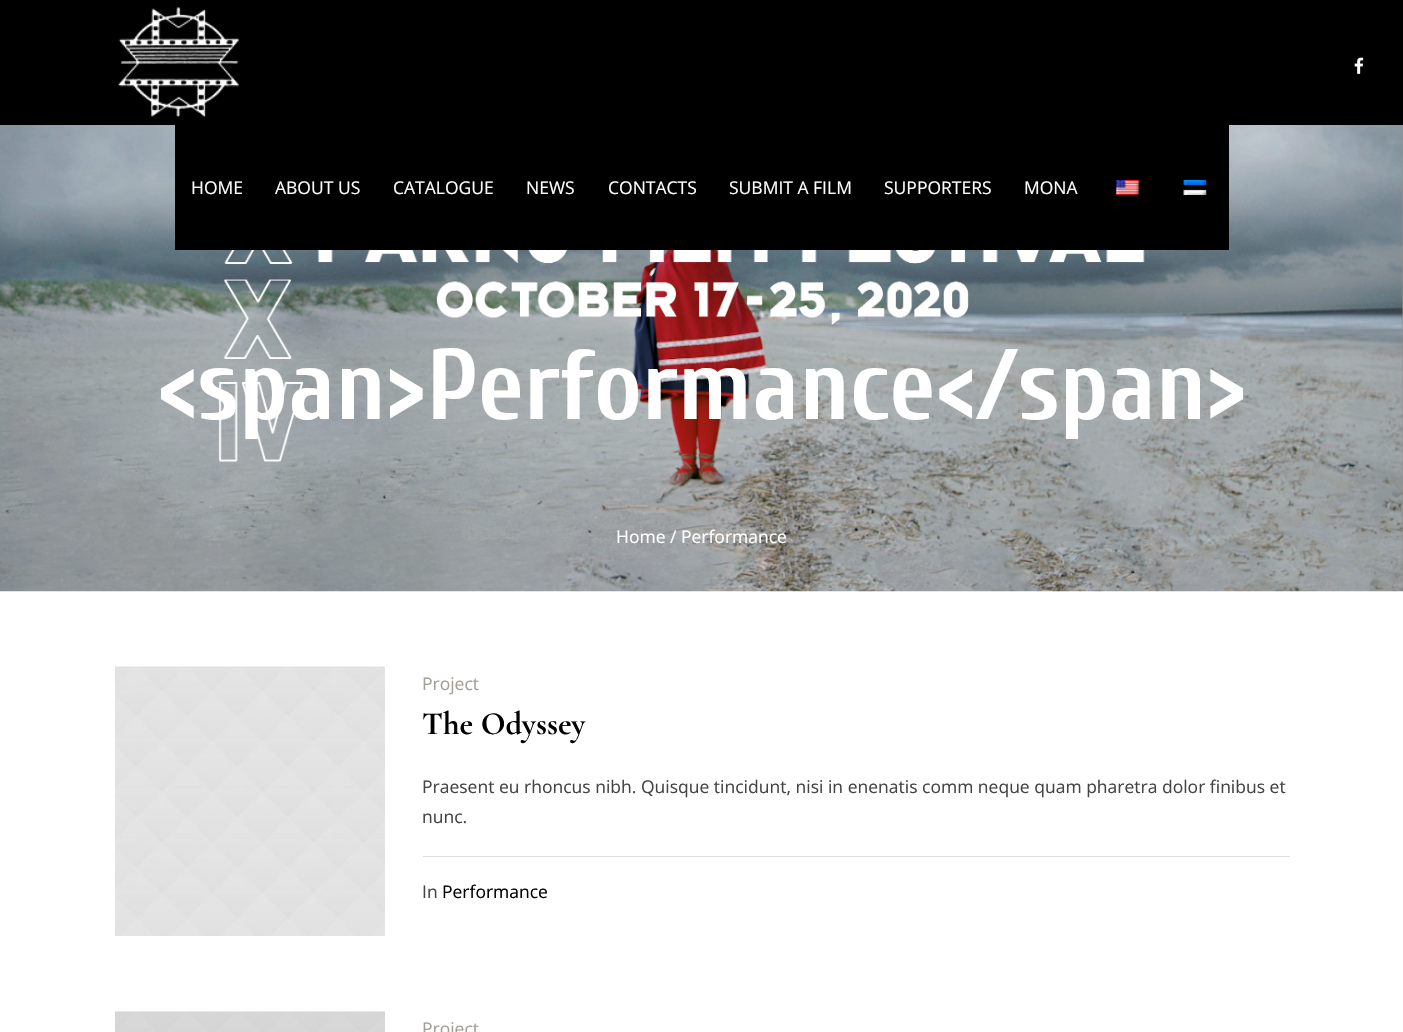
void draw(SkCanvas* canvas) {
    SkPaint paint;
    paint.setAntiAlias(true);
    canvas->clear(0xFFFFFFFF);
    paint.setColor(0xFF000000);
    canvas->drawRect(SkRect::MakeXYWH(0, 0, 1403, 125), paint);
    canvas->drawImageRect(SkImages::DeferredFromEncodedData(SkData::MakeFromFileName("img1.png")), SkRect::MakeXYWH(118, 7, 121, 110), SkSamplingOptions());
    canvas->drawImageRect(SkImages::DeferredFromEncodedData(SkData::MakeFromFileName("img2.png")), SkRect::MakeXYWH(1354, 57, 10, 17), SkSamplingOptions());
    canvas->drawImageRect(SkImages::DeferredFromEncodedData(SkData::MakeFromFileName("img5.png")), SkRect::MakeXYWH(0, 125, 1403, 467), SkSamplingOptions());
    canvas->drawRect(SkRect::MakeXYWH(175, 125, 1054, 125), paint);
    SkFont font1(fontMgr->matchFamilyStyle("Open Sans", SkFontStyle::Normal()), 17.5f);
    font1.setSubpixel(true);
    paint.setColor(0xFFFFFFFF);
    canvas->drawString("HOME", 191, 194, font1, paint);
    canvas->drawString("ABOUT US", 275, 194, font1, paint);
    canvas->drawString("CATALOGUE", 393, 194, font1, paint);
    canvas->drawString("NEWS", 526, 194, font1, paint);
    canvas->drawString("CONTACTS", 608, 194, font1, paint);
    canvas->drawString("SUBMIT A FILM", 729, 194, font1, paint);
    canvas->drawString("SUPPORTERS", 884, 194, font1, paint);
    canvas->drawString("MONA", 1024, 194, font1, paint);
    canvas->drawImageRect(SkImages::DeferredFromEncodedData(SkData::MakeFromFileName("img3.png")), SkRect::MakeXYWH(1116, 180, 24, 15), SkSamplingOptions());
    canvas->drawImageRect(SkImages::DeferredFromEncodedData(SkData::MakeFromFileName("img4.png")), SkRect::MakeXYWH(1183, 180, 24, 15), SkSamplingOptions());
    SkFont font2(fontMgr->matchFamilyStyle("Cuprum", SkFontStyle::Bold()), 100);
    font2.setSubpixel(true);
    canvas->drawString("<span>Performance</span>", 157, 419, font2, paint);
    canvas->drawString("Home / Performance", 616, 543, font1, paint);
    canvas->drawImageRect(SkImages::DeferredFromEncodedData(SkData::MakeFromFileName("img6.png")), SkRect::MakeXYWH(115, 666, 270, 270), SkSamplingOptions());
    paint.setColor(0xFFA49F95);
    canvas->drawString("Project", 422, 690, font1, paint);
    SkFont font3(fontMgr->matchFamilyStyle("Cormorant Garamond", SkFontStyle::Bold()), 32.5f);
    font3.setSubpixel(true);
    paint.setColor(0xFF000000);
    canvas->drawString("The Odyssey", 422, 734, font3, paint);
    paint.setColor(0xFF444444);
    canvas->drawString("Praesent eu rhoncus nibh. Quisque tincidunt, nisi in enenatis comm neque quam pharetra dolor finibus et", 422, 793, font1, paint);
    canvas->drawString("nunc.", 422, 823, font1, paint);
    paint.setColor(0xFFDEDEDE);
    canvas->drawRect(SkRect::MakeXYWH(423, 856, 867, 1), paint);
    paint.setColor(0xFF444444);
    canvas->drawString("In", 422, 898, font1, paint);
    paint.setColor(0xFF000000);
    canvas->drawString("Performance", 442, 898, font1, paint);
    canvas->drawImageRect(SkImages::DeferredFromEncodedData(SkData::MakeFromFileName("img7.png")), SkRect::MakeXYWH(115, 1011, 270, 21), SkSamplingOptions());
    paint.setColor(0xFFA49F95);
    canvas->drawString("Project", 422, 1035, font1, paint);
}
